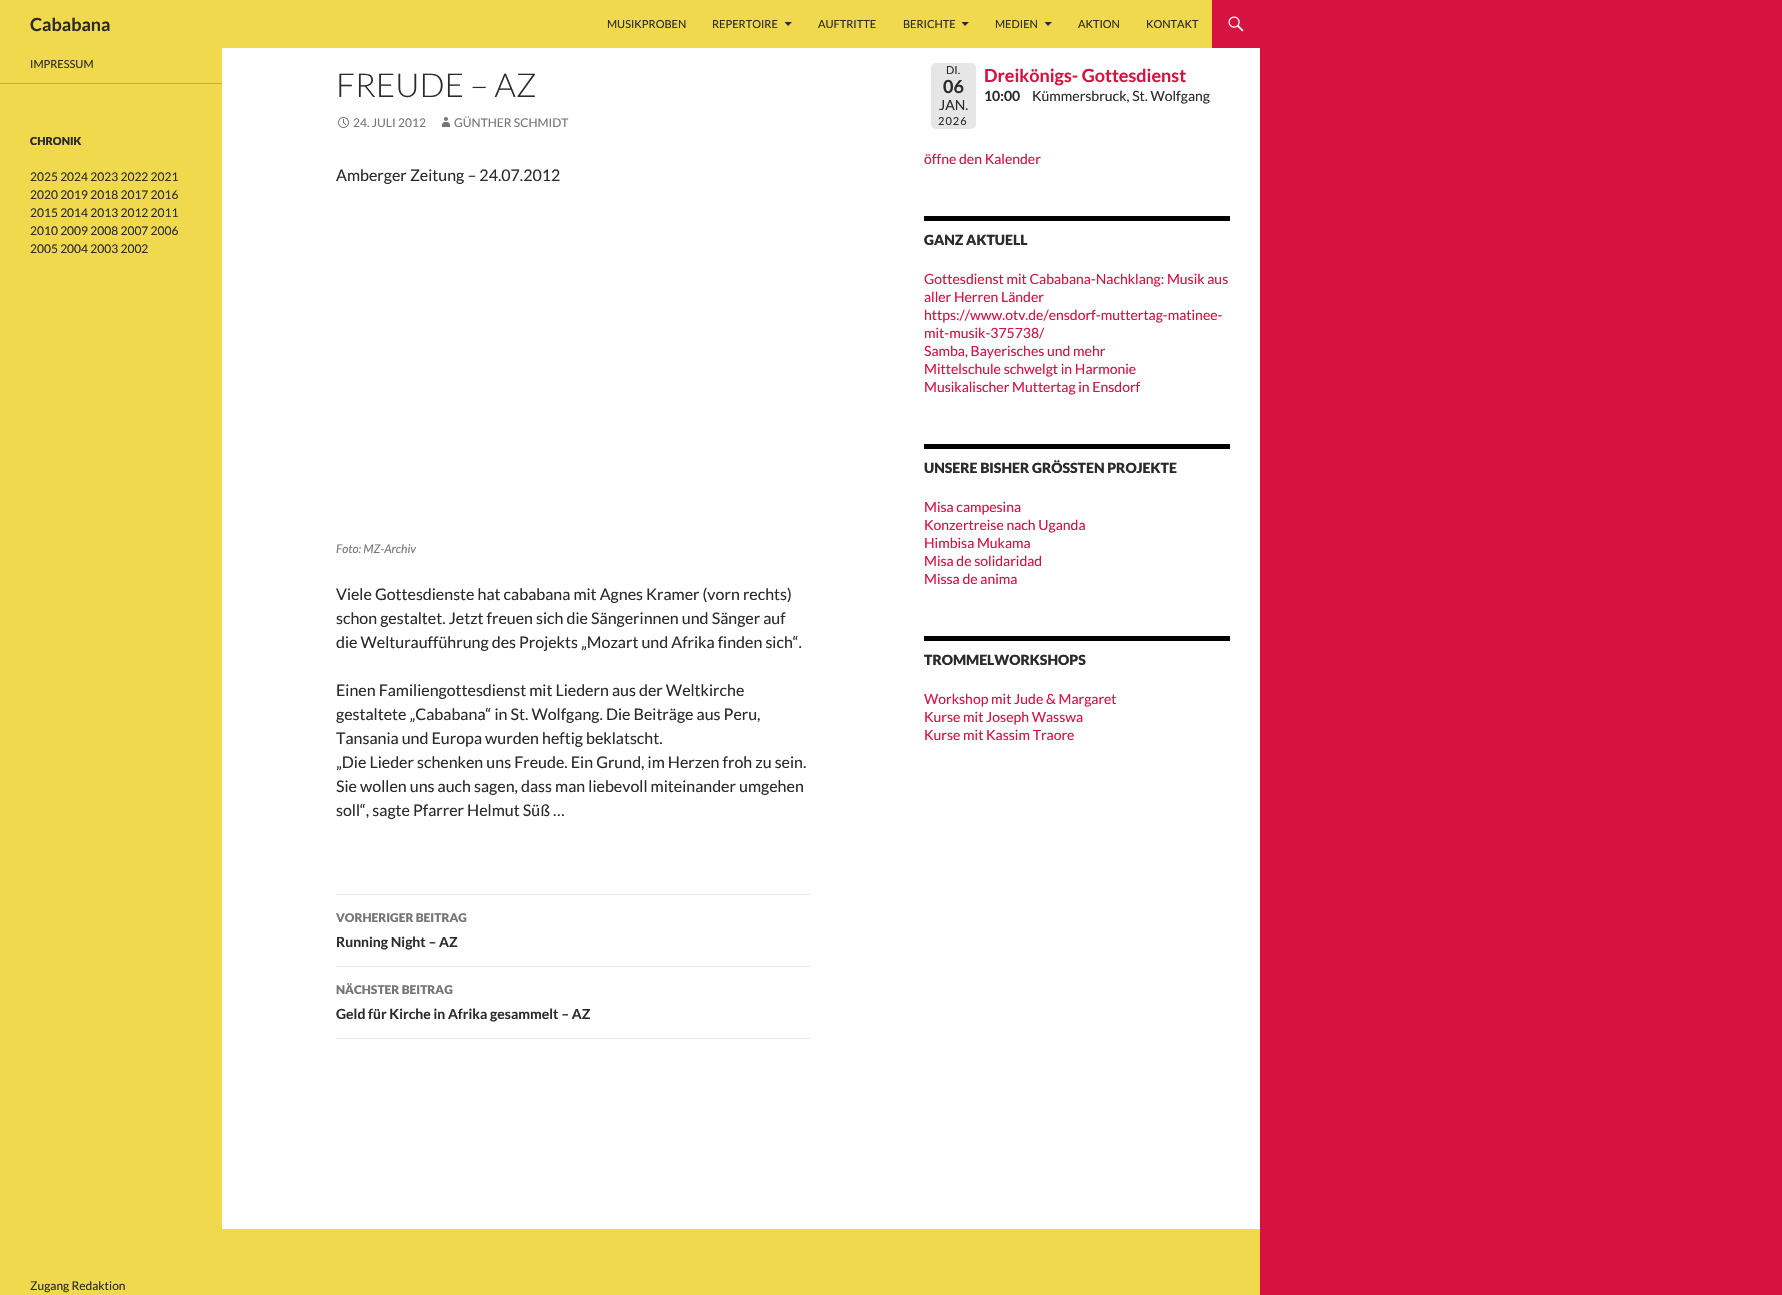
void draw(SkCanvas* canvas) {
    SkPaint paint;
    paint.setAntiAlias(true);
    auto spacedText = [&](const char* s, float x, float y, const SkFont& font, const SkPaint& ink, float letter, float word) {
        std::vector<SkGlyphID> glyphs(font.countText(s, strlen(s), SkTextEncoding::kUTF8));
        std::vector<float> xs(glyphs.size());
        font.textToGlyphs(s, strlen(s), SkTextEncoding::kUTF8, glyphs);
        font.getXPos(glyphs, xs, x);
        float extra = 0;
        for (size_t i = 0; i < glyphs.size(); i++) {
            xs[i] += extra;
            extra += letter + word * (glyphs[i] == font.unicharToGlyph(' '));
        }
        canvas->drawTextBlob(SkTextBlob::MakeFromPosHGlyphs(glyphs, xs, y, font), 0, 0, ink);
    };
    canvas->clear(0xFFD61240);
    paint.setColor(0xFFFFFFFF);
    canvas->drawRect(SkRect::MakeXYWH(222, 48, 1038, 1181), paint);
    paint.setColor(0xFFF1D94E);
    canvas->drawRect(SkRect::MakeXYWH(0, 0, 1212, 48), paint);
    SkFont font1(fontMgr->matchFamilyStyle("Lato", SkFontStyle::Bold()), 18);
    font1.setSubpixel(true);
    paint.setColor(0xFF2B2B2B);
    canvas->drawString("Cababana", 30, 31, font1, paint);
    SkFont font2(fontMgr->matchFamilyStyle("Lato", SkFontStyle::Normal()), 11);
    font2.setSubpixel(true);
    canvas->drawString("MUSIKPROBEN", 607, 28, font2, paint);
    canvas->drawString("REPERTOIRE", 712, 28, font2, paint);
    canvas->drawPath(SkPathBuilder().moveTo(784.5f, 22).lineTo(788, 26).lineTo(792, 22).close().detach(), paint);
    canvas->drawString("AUFTRITTE", 818, 28, font2, paint);
    canvas->drawString("BERICHTE", 903, 28, font2, paint);
    canvas->drawPath(SkPathBuilder().moveTo(961.5f, 22).lineTo(965, 26).lineTo(969, 22).close().detach(), paint);
    canvas->drawString("MEDIEN", 995, 28, font2, paint);
    canvas->drawPath(SkPathBuilder().moveTo(1044.5f, 22).lineTo(1048, 26).lineTo(1052, 22).close().detach(), paint);
    canvas->drawString("AKTION", 1078, 28, font2, paint);
    canvas->drawString("KONTAKT", 1146, 28, font2, paint);
    canvas->drawImageRect(SkImages::DeferredFromEncodedData(SkData::MakeFromFileName("img1.png")), SkRect::MakeXYWH(1228, 16, 16, 16), SkSamplingOptions());
    paint.setColor(0xFFF1D94E);
    canvas->drawRect(SkRect::MakeXYWH(0, 48, 222, 1181), paint);
    paint.setColor(0xFFC1AE3E);
    canvas->drawRect(SkRect::MakeXYWH(0, 83, 222, 1), paint);
    paint.setColor(0xFF2B2B2B);
    canvas->drawString("IMPRESSUM", 30, 68, font2, paint);
    SkFont font3(fontMgr->matchFamilyStyle("Lato", SkFontStyle(900, SkFontStyle::kNormal_Width, SkFontStyle::kUpright_Slant)), 11);
    font3.setSubpixel(true);
    canvas->drawString("CHRONIK", 30, 145, font3, paint);
    SkFont font4(fontMgr->matchFamilyStyle("Lato", SkFontStyle::Normal()), 12);
    font4.setSubpixel(true);
    canvas->drawString("2025 2024 2023 2022 2021", 30, 181, font4, paint);
    canvas->drawString("2020 2019 2018 2017 2016", 30, 199, font4, paint);
    canvas->drawString("2015 2014 2013 2012 2011", 30, 217, font4, paint);
    canvas->drawString("2010 2009 2008 2007 2006", 30, 235, font4, paint);
    canvas->drawString("2005 2004 2003 2002", 30, 253, font4, paint);
    SkFont font5(fontMgr->matchFamilyStyle("Lato", SkFontStyle(300, SkFontStyle::kNormal_Width, SkFontStyle::kUpright_Slant)), 33);
    font5.setSubpixel(true);
    canvas->drawString("FREUDE – AZ", 336, 97, font5, paint);
    canvas->drawImageRect(SkImages::DeferredFromEncodedData(SkData::MakeFromFileName("img2.png")), SkRect::MakeXYWH(338, 117, 11, 11), SkSamplingOptions());
    paint.setColor(0xFF767676);
    canvas->drawString("24. JULI 2012", 353, 127, font4, paint);
    canvas->drawImageRect(SkImages::DeferredFromEncodedData(SkData::MakeFromFileName("img3.png")), SkRect::MakeXYWH(442, 117, 8, 10), SkSamplingOptions());
    canvas->drawString("GÜNTHER SCHMIDT", 454, 127, font4, paint);
    SkFont font6(fontMgr->matchFamilyStyle("Lato", SkFontStyle::Normal()), 16);
    font6.setSubpixel(true);
    paint.setColor(0xFF2B2B2B);
    canvas->drawString("Amberger Zeitung – 24.07.2012", 336, 181, font6, paint);
    SkFont font7(fontMgr->matchFamilyStyle("Lato", SkFontStyle::Italic()), 12);
    font7.setSubpixel(true);
    paint.setColor(0xFF767676);
    canvas->drawString("Foto: MZ-Archiv", 336, 553, font7, paint);
    paint.setColor(0xFF2B2B2B);
    canvas->drawString("Viele Gottesdienste hat cababana mit Agnes Kramer (vorn rechts)", 336, 600, font6, paint);
    canvas->drawString("schon gestaltet. Jetzt freuen sich die Sängerinnen und Sänger auf", 336, 624, font6, paint);
    canvas->drawString("die Welturaufführung des Projekts „Mozart und Afrika finden sich“.", 336, 648, font6, paint);
    canvas->drawString("Einen Familiengottesdienst mit Liedern aus der Weltkirche", 336, 696, font6, paint);
    canvas->drawString("gestaltete „Cababana“ in St. Wolfgang. Die Beiträge aus Peru,", 336, 720, font6, paint);
    canvas->drawString("Tansania und Europa wurden heftig beklatscht.", 336, 744, font6, paint);
    canvas->drawString("„Die Lieder schenken uns Freude. Ein Grund, im Herzen froh zu sein.", 336, 768, font6, paint);
    canvas->drawString("Sie wollen uns auch sagen, dass man liebevoll miteinander umgehen", 336, 792, font6, paint);
    canvas->drawString("soll“, sagte Pfarrer Helmut Süß …", 336, 816, font6, paint);
    paint.setColor(0xFFE6E6E6);
    canvas->drawRect(SkRect::MakeXYWH(336, 894, 474, 1), paint);
    canvas->drawRect(SkRect::MakeXYWH(336, 966, 474, 1), paint);
    SkFont font8(fontMgr->matchFamilyStyle("Lato", SkFontStyle(900, SkFontStyle::kNormal_Width, SkFontStyle::kUpright_Slant)), 12);
    font8.setSubpixel(true);
    paint.setColor(0xFF767676);
    canvas->drawString("VORHERIGER BEITRAG", 336, 922, font8, paint);
    SkFont font9(fontMgr->matchFamilyStyle("Lato", SkFontStyle::Bold()), 14);
    font9.setSubpixel(true);
    paint.setColor(0xFF2B2B2B);
    canvas->drawString("Running Night – AZ", 336, 947, font9, paint);
    paint.setColor(0xFFE6E6E6);
    canvas->drawRect(SkRect::MakeXYWH(336, 1038, 474, 1), paint);
    paint.setColor(0xFF767676);
    canvas->drawString("NÄCHSTER BEITRAG", 336, 994, font8, paint);
    paint.setColor(0xFF2B2B2B);
    canvas->drawString("Geld für Kirche in Afrika gesammelt – AZ", 336, 1019, font9, paint);
    paint.setColor(0xFFE6E6E6);
    canvas->drawRoundRect(SkRect::MakeXYWH(931, 63, 45, 66), 5, 5, paint);
    paint.setColor(0xFF2B2B2B);
    canvas->drawString("DI.", 946, 74, font2, paint);
    canvas->drawString("06", 943, 93, font1, paint);
    SkFont font10(fontMgr->matchFamilyStyle("Lato", SkFontStyle::Normal()), 14);
    font10.setSubpixel(true);
    canvas->drawString("JAN.", 939, 110, font10, paint);
    spacedText("2026", 938, 125, font2, paint, 1, 0);
    paint.setColor(0xFFD61240);
    canvas->drawString("Dreikönigs- Gottesdienst", 984, 82, font1, paint);
    paint.setColor(0xFF2B2B2B);
    canvas->drawString("10:00", 984, 101, font9, paint);
    canvas->drawString("Kümmersbruck, St. Wolfgang", 1032, 101, font10, paint);
    paint.setColor(0xFFD61240);
    canvas->drawString("öffne den Kalender", 924, 164, font10, paint);
    paint.setColor(0xFF000000);
    canvas->drawRect(SkRect::MakeXYWH(924, 216, 306, 5), paint);
    SkFont font11(fontMgr->matchFamilyStyle("Lato", SkFontStyle(900, SkFontStyle::kNormal_Width, SkFontStyle::kUpright_Slant)), 14);
    font11.setSubpixel(true);
    paint.setColor(0xFF2B2B2B);
    canvas->drawString("GANZ AKTUELL", 924, 245, font11, paint);
    paint.setColor(0xFFD61240);
    canvas->drawString("Gottesdienst mit Cababana-Nachklang: Musik aus", 924, 284, font10, paint);
    canvas->drawString("aller Herren Länder", 924, 302, font10, paint);
    canvas->drawString("https://www.otv.de/ensdorf-muttertag-matinee-", 924, 320, font10, paint);
    canvas->drawString("mit-musik-375738/", 924, 338, font10, paint);
    canvas->drawString("Samba, Bayerisches und mehr", 924, 356, font10, paint);
    canvas->drawString("Mittelschule schwelgt in Harmonie", 924, 374, font10, paint);
    canvas->drawString("Musikalischer Muttertag in Ensdorf", 924, 392, font10, paint);
    paint.setColor(0xFF000000);
    canvas->drawRect(SkRect::MakeXYWH(924, 444, 306, 5), paint);
    paint.setColor(0xFF2B2B2B);
    canvas->drawString("UNSERE BISHER GRÖSSTEN PROJEKTE", 924, 473, font11, paint);
    paint.setColor(0xFFD61240);
    canvas->drawString("Misa campesina", 924, 512, font10, paint);
    canvas->drawString("Konzertreise nach Uganda", 924, 530, font10, paint);
    canvas->drawString("Himbisa Mukama", 924, 548, font10, paint);
    canvas->drawString("Misa de solidaridad", 924, 566, font10, paint);
    canvas->drawString("Missa de anima", 924, 584, font10, paint);
    paint.setColor(0xFF000000);
    canvas->drawRect(SkRect::MakeXYWH(924, 636, 306, 5), paint);
    paint.setColor(0xFF2B2B2B);
    canvas->drawString("TROMMELWORKSHOPS", 924, 665, font11, paint);
    paint.setColor(0xFFD61240);
    canvas->drawString("Workshop mit Jude & Margaret", 924, 704, font10, paint);
    canvas->drawString("Kurse mit Joseph Wasswa", 924, 722, font10, paint);
    canvas->drawString("Kurse mit Kassim Traore", 924, 740, font10, paint);
    paint.setColor(0xFFF1D94E);
    canvas->drawRect(SkRect::MakeXYWH(0, 1229, 1260, 66), paint);
    paint.setColor(0xFF2B2B2B);
    canvas->drawString("Zugang Redaktion", 30, 1290, font4, paint);
}
